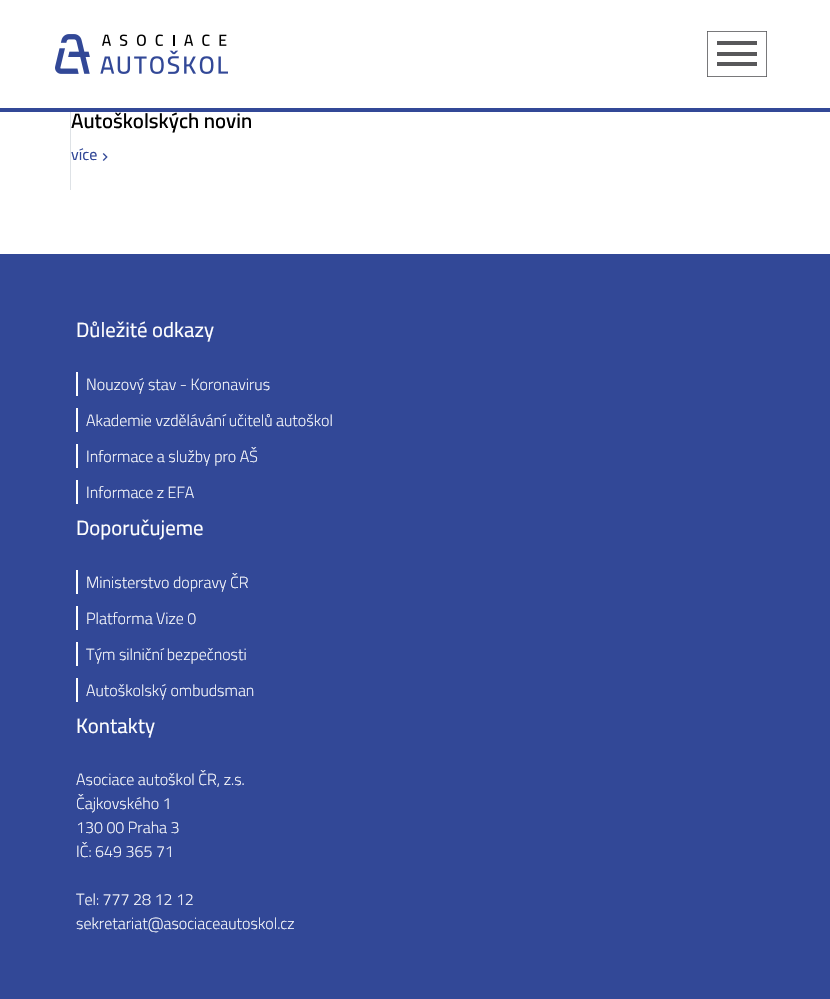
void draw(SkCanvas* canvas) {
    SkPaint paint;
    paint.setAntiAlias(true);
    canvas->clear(0xFFFFFFFF);
    paint.setColor(0xFF324897);
    canvas->drawRect(SkRect::MakeXYWH(0, 108, 830, 4), paint);
    canvas->drawImageRect(SkImages::DeferredFromEncodedData(SkData::MakeFromFileName("img1.png")), SkRect::MakeXYWH(55, 34, 173, 40), SkSamplingOptions());
    paint.setStyle(SkPaint::kStroke_Style);
    paint.setStrokeWidth(0.8f);
    paint.setColor(0xFF58585A);
    canvas->drawRect(SkRect::MakeXYWH(707.4f, 31.4f, 59.2f, 45.2f), paint);
    paint.setStyle(SkPaint::kFill_Style);
    canvas->drawRect(SkRect::MakeXYWH(717, 41, 40, 4), paint);
    canvas->drawRect(SkRect::MakeXYWH(717, 52, 40, 4), paint);
    canvas->drawRect(SkRect::MakeXYWH(717, 62, 40, 4), paint);
    paint.setColor(0xFFDEE2E6);
    canvas->drawRect(SkRect::MakeXYWH(70, 112, 1, 78), paint);
    SkFont font1(fontMgr->matchFamilyStyle("Cairo", SkFontStyle(600, SkFontStyle::kNormal_Width, SkFontStyle::kUpright_Slant)), 20.75f);
    font1.setSubpixel(true);
    paint.setColor(0xFF000000);
    canvas->drawString("Autoškolských novin", 71, 128, font1, paint);
    SkFont font2(fontMgr->matchFamilyStyle("Cairo", SkFontStyle::Normal()), 16);
    font2.setSubpixel(true);
    paint.setColor(0xFF324897);
    canvas->drawString("více", 71, 160, font2, paint);
    canvas->drawImageRect(SkImages::DeferredFromEncodedData(SkData::MakeFromFileName("img2.png")), SkRect::MakeXYWH(102, 153, 6, 8), SkSamplingOptions());
    canvas->drawRect(SkRect::MakeXYWH(0, 254, 830, 745), paint);
    SkFont font3(fontMgr->matchFamilyStyle("Cairo", SkFontStyle::Normal()), 20.75f);
    font3.setSubpixel(true);
    paint.setColor(0xFFFFFFFF);
    canvas->drawString("Důležité odkazy", 76, 337, font3, paint);
    canvas->drawRect(SkRect::MakeXYWH(76, 372, 2, 24), paint);
    SkFont font4(fontMgr->matchFamilyStyle("Cairo", SkFontStyle(300, SkFontStyle::kNormal_Width, SkFontStyle::kUpright_Slant)), 16);
    font4.setSubpixel(true);
    canvas->drawString("Nouzový stav - Koronavirus", 86, 390, font4, paint);
    canvas->drawRect(SkRect::MakeXYWH(76, 408, 2, 24), paint);
    canvas->drawString("Akademie vzdělávání učitelů autoškol", 86, 426, font4, paint);
    canvas->drawRect(SkRect::MakeXYWH(76, 444, 2, 24), paint);
    canvas->drawString("Informace a služby pro AŠ", 86, 462, font4, paint);
    canvas->drawRect(SkRect::MakeXYWH(76, 480, 2, 24), paint);
    canvas->drawString("Informace z EFA", 86, 498, font4, paint);
    canvas->drawString("Doporučujeme", 76, 535, font3, paint);
    canvas->drawRect(SkRect::MakeXYWH(76, 570, 2, 24), paint);
    canvas->drawString("Ministerstvo dopravy ČR", 86, 588, font4, paint);
    canvas->drawRect(SkRect::MakeXYWH(76, 606, 2, 24), paint);
    canvas->drawString("Platforma Vize 0", 86, 624, font4, paint);
    canvas->drawRect(SkRect::MakeXYWH(76, 642, 2, 24), paint);
    canvas->drawString("Tým silniční bezpečnosti", 86, 660, font4, paint);
    canvas->drawRect(SkRect::MakeXYWH(76, 678, 2, 24), paint);
    canvas->drawString("Autoškolský ombudsman", 86, 696, font4, paint);
    canvas->drawString("Kontakty", 76, 733, font3, paint);
    canvas->drawString("Asociace autoškol ČR, z.s.", 76, 785, font4, paint);
    canvas->drawString("Čajkovského 1", 76, 809, font4, paint);
    canvas->drawString("130 00 Praha 3", 76, 833, font4, paint);
    canvas->drawString("IČ: 649 365 71", 76, 857, font4, paint);
    canvas->drawString("Tel: 777 28 12 12", 76, 905, font4, paint);
    canvas->drawString("sekretariat@asociaceautoskol.cz", 76, 929, font4, paint);
}
